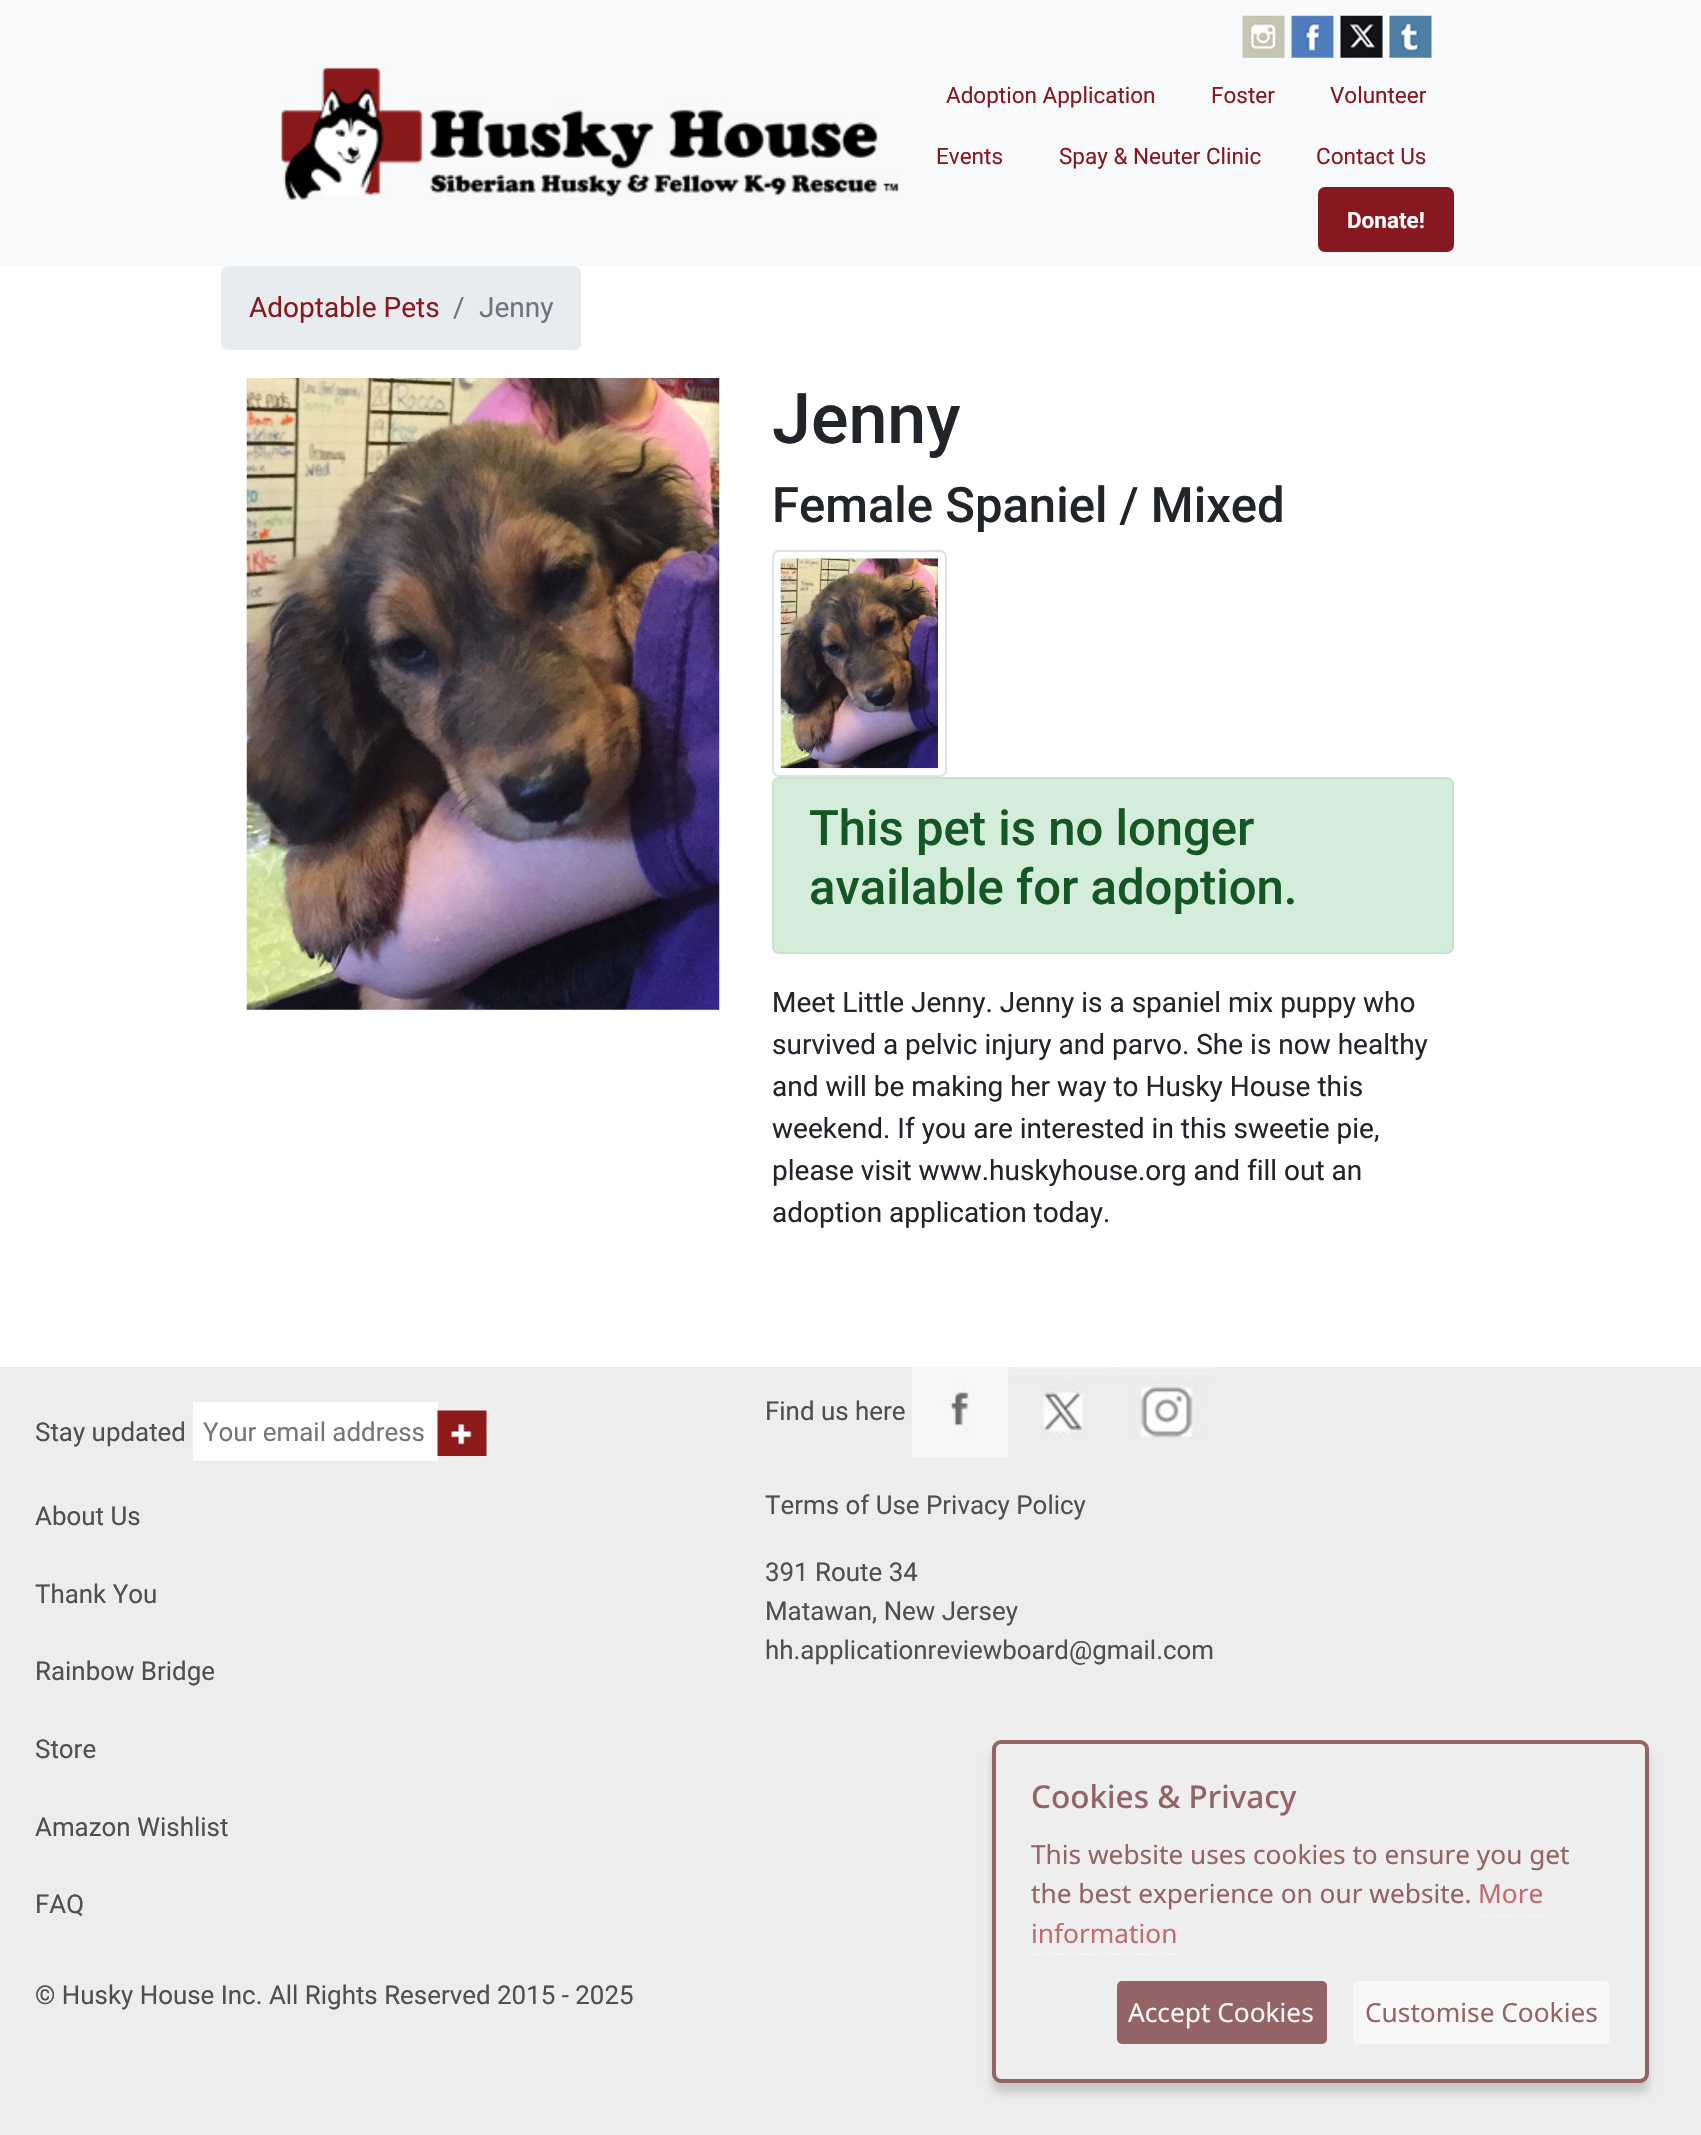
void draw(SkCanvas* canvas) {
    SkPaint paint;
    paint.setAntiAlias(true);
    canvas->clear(0xFFEDEDED);
    paint.setColor(0xFFFFFFFF);
    canvas->drawRect(SkRect::MakeXYWH(0, 266, 1701, 1101), paint);
    paint.setColor(0xFFF8F9FA);
    canvas->drawRect(SkRect::MakeXYWH(0, 0, 1701, 266), paint);
    canvas->drawImageRect(SkImages::DeferredFromEncodedData(SkData::MakeFromFileName("img1.png")), SkRect::MakeXYWH(281, 67, 618, 133), SkSamplingOptions());
    canvas->drawImageRect(SkImages::DeferredFromEncodedData(SkData::MakeFromFileName("img2.png")), SkRect::MakeXYWH(1242, 15, 43, 43), SkSamplingOptions());
    canvas->drawImageRect(SkImages::DeferredFromEncodedData(SkData::MakeFromFileName("img3.png")), SkRect::MakeXYWH(1291, 15, 43, 43), SkSamplingOptions());
    canvas->drawImageRect(SkImages::DeferredFromEncodedData(SkData::MakeFromFileName("img4.png")), SkRect::MakeXYWH(1340, 15, 43, 43), SkSamplingOptions());
    canvas->drawImageRect(SkImages::DeferredFromEncodedData(SkData::MakeFromFileName("img5.png")), SkRect::MakeXYWH(1389, 15, 43, 43), SkSamplingOptions());
    SkFont font1(fontMgr->matchFamilyStyle("Roboto", SkFontStyle::Normal()), 22.5f);
    font1.setSubpixel(true);
    paint.setColor(0xFF87181F);
    canvas->drawString("Adoption Application", 946, 103, font1, paint);
    canvas->drawString("Foster", 1211, 103, font1, paint);
    canvas->drawString("Volunteer", 1330, 103, font1, paint);
    canvas->drawString("Events", 936, 164, font1, paint);
    canvas->drawString("Spay & Neuter Clinic", 1059, 164, font1, paint);
    canvas->drawString("Contact Us", 1316, 164, font1, paint);
    canvas->drawRoundRect(SkRect::MakeXYWH(1318, 187, 136, 65), 7, 7, paint);
    SkFont font2(fontMgr->matchFamilyStyle("Roboto", SkFontStyle::Bold()), 22.5f);
    font2.setSubpixel(true);
    paint.setColor(0xFFFFFFFF);
    canvas->drawString("Donate!", 1347, 228, font2, paint);
    paint.setColor(0xFFE9ECEF);
    canvas->drawRoundRect(SkRect::MakeXYWH(221, 266, 360, 84), 7, 7, paint);
    SkFont font3(fontMgr->matchFamilyStyle("Roboto", SkFontStyle::Normal()), 28);
    font3.setSubpixel(true);
    paint.setColor(0xFF87181F);
    canvas->drawString("Adoptable Pets", 249, 317, font3, paint);
    paint.setColor(0xFF6C757D);
    canvas->drawString("/", 453, 317, font3, paint);
    canvas->drawString("Jenny", 479, 317, font3, paint);
    canvas->drawImageRect(SkImages::DeferredFromEncodedData(SkData::MakeFromFileName("img6.png")), SkRect::MakeXYWH(246, 378, 474, 632), SkSamplingOptions());
    SkFont font4(fontMgr->matchFamilyStyle("Roboto", SkFontStyle(500, SkFontStyle::kNormal_Width, SkFontStyle::kUpright_Slant)), 70);
    font4.setSubpixel(true);
    paint.setColor(0xFF212529);
    canvas->drawString("Jenny", 772, 443, font4, paint);
    SkFont font5(fontMgr->matchFamilyStyle("Roboto", SkFontStyle(500, SkFontStyle::kNormal_Width, SkFontStyle::kUpright_Slant)), 49);
    font5.setSubpixel(true);
    canvas->drawString("Female Spaniel / Mixed", 772, 522, font5, paint);
    paint.setStyle(SkPaint::kStroke_Style);
    paint.setStrokeWidth(2);
    paint.setColor(0xFFDEE2E6);
    canvas->drawRoundRect(SkRect::MakeXYWH(773, 551, 173, 225), 6, 6, paint);
    canvas->drawImageRect(SkImages::DeferredFromEncodedData(SkData::MakeFromFileName("img7.png")), SkRect::MakeXYWH(780, 558, 158, 211), SkSamplingOptions());
    paint.setStyle(SkPaint::kFill_Style);
    paint.setColor(0xFFD4EDDA);
    canvas->drawRoundRect(SkRect::MakeXYWH(773, 778, 680, 175), 6, 6, paint);
    paint.setStyle(SkPaint::kStroke_Style);
    paint.setColor(0xFFC3E6CB);
    canvas->drawRoundRect(SkRect::MakeXYWH(773, 778, 680, 175), 6, 6, paint);
    paint.setStyle(SkPaint::kFill_Style);
    paint.setColor(0xFF155724);
    canvas->drawString("This pet is no longer", 809, 845, font5, paint);
    canvas->drawString("available for adoption.", 809, 904, font5, paint);
    paint.setColor(0xFF212529);
    canvas->drawString("Meet Little Jenny. Jenny is a spaniel mix puppy who", 772, 1012, font3, paint);
    canvas->drawString("survived a pelvic injury and parvo. She is now healthy", 772, 1054, font3, paint);
    canvas->drawString("and will be making her way to Husky House this", 772, 1096, font3, paint);
    canvas->drawString("weekend. If you are interested in this sweetie pie,", 772, 1138, font3, paint);
    canvas->drawString("please visit www.huskyhouse.org and fill out an", 772, 1180, font3, paint);
    canvas->drawString("adoption application today.", 772, 1222, font3, paint);
    SkFont font6(fontMgr->matchFamilyStyle("Roboto", SkFontStyle::Normal()), 25.9f);
    font6.setSubpixel(true);
    paint.setColor(0xFF524E4B);
    canvas->drawString("Stay updated", 35, 1441, font6, paint);
    paint.setColor(0xFFFFFFFF);
    canvas->drawRect(SkRect::MakeXYWH(193, 1402, 245, 59), paint);
    paint.setColor(0xFF757575);
    canvas->drawString("Your email address", 203, 1441, font6, paint);
    canvas->drawImageRect(SkImages::DeferredFromEncodedData(SkData::MakeFromFileName("img8.png")), SkRect::MakeXYWH(437, 1410, 50, 46), SkSamplingOptions());
    paint.setColor(0xFF524E4B);
    canvas->drawString("About Us", 35, 1525, font6, paint);
    canvas->drawString("Thank You", 35, 1603, font6, paint);
    canvas->drawString("Rainbow Bridge", 35, 1680, font6, paint);
    canvas->drawString("Store", 35, 1758, font6, paint);
    canvas->drawString("Amazon Wishlist", 35, 1836, font6, paint);
    canvas->drawString("FAQ", 35, 1913, font6, paint);
    canvas->drawString("© Husky House Inc. All Rights Reserved 2015 - 2025", 35, 2004, font6, paint);
    canvas->drawString("Find us here", 765, 1420, font6, paint);
    canvas->drawImageRect(SkImages::DeferredFromEncodedData(SkData::MakeFromFileName("img9.png")), SkRect::MakeXYWH(912, 1367, 96, 91), SkSamplingOptions());
    canvas->drawImageRect(SkImages::DeferredFromEncodedData(SkData::MakeFromFileName("img10.png")), SkRect::MakeXYWH(1015, 1367, 96, 70), SkSamplingOptions());
    canvas->drawImageRect(SkImages::DeferredFromEncodedData(SkData::MakeFromFileName("img11.png")), SkRect::MakeXYWH(1118, 1367, 97, 71), SkSamplingOptions());
    canvas->drawString("Terms of Use Privacy Policy", 765, 1514, font6, paint);
    canvas->drawString("391 Route 34", 765, 1581, font6, paint);
    canvas->drawString("Matawan, New Jersey", 765, 1620, font6, paint);
    canvas->drawString("hh.applicationreviewboard@gmail.com", 765, 1659, font6, paint);
    paint.setColor(0x40585858);
    paint.setMaskFilter(SkMaskFilter::MakeBlur(kNormal_SkBlurStyle, 5));
    canvas->drawRoundRect(SkRect::MakeXYWH(992, 1750, 657, 343), 9, 9, paint);
    paint.setMaskFilter(nullptr);
    paint.setColor(0xFFEEEEEE);
    canvas->drawRoundRect(SkRect::MakeXYWH(994, 1742, 653, 339), 7, 7, paint);
    paint.setStyle(SkPaint::kStroke_Style);
    paint.setStrokeWidth(4);
    paint.setColor(0xFF946366);
    canvas->drawRoundRect(SkRect::MakeXYWH(994, 1742, 653, 339), 7, 7, paint);
    SkFont font7(fontMgr->matchFamilyStyle("Noto Sans", SkFontStyle(500, SkFontStyle::kNormal_Width, SkFontStyle::kUpright_Slant)), 31.5f);
    font7.setSubpixel(true);
    paint.setStyle(SkPaint::kFill_Style);
    canvas->drawString("Cookies & Privacy", 1031, 1808, font7, paint);
    SkFont font8(fontMgr->matchFamilyStyle("Noto Sans", SkFontStyle::Normal()), 26.25f);
    font8.setSubpixel(true);
    canvas->drawString("This website uses cookies to ensure you get", 1031, 1864, font8, paint);
    canvas->drawString("the best experience on our website.", 1031, 1903, font8, paint);
    paint.setColor(0xFFC16B71);
    canvas->drawString("More", 1478, 1903, font8, paint);
    paint.setStyle(SkPaint::kStroke_Style);
    paint.setStrokeWidth(1.8f);
    paint.setColor(0xFFF6F6F6);
    paint.setPathEffect(SkDashPathEffect::Make({{1.75f, 1.75f}}, 0));
    canvas->drawPath(SkPathBuilder().moveTo(1479, 1915.5f).lineTo(1543.5f, 1915.5f).detach(), paint);
    paint.setPathEffect(nullptr);
    paint.setStyle(SkPaint::kFill_Style);
    paint.setColor(0xFFC16B71);
    canvas->drawString("information", 1031, 1943, font8, paint);
    paint.setStyle(SkPaint::kStroke_Style);
    paint.setColor(0xFFF6F6F6);
    paint.setPathEffect(SkDashPathEffect::Make({{1.75f, 1.75f}}, 0));
    canvas->drawPath(SkPathBuilder().moveTo(1031, 1954).lineTo(1178, 1954).detach(), paint);
    paint.setPathEffect(nullptr);
    paint.setStyle(SkPaint::kFill_Style);
    paint.setColor(0xFF946366);
    canvas->drawRoundRect(SkRect::MakeXYWH(1117, 1981, 210, 63), 5, 5, paint);
    paint.setColor(0xFFF8F8F8);
    canvas->drawString("Accept Cookies", 1128, 2022, font8, paint);
    canvas->drawRoundRect(SkRect::MakeXYWH(1353, 1981, 257, 63), 5, 5, paint);
    paint.setColor(0xFF946366);
    canvas->drawString("Customise Cookies", 1365, 2022, font8, paint);
}
